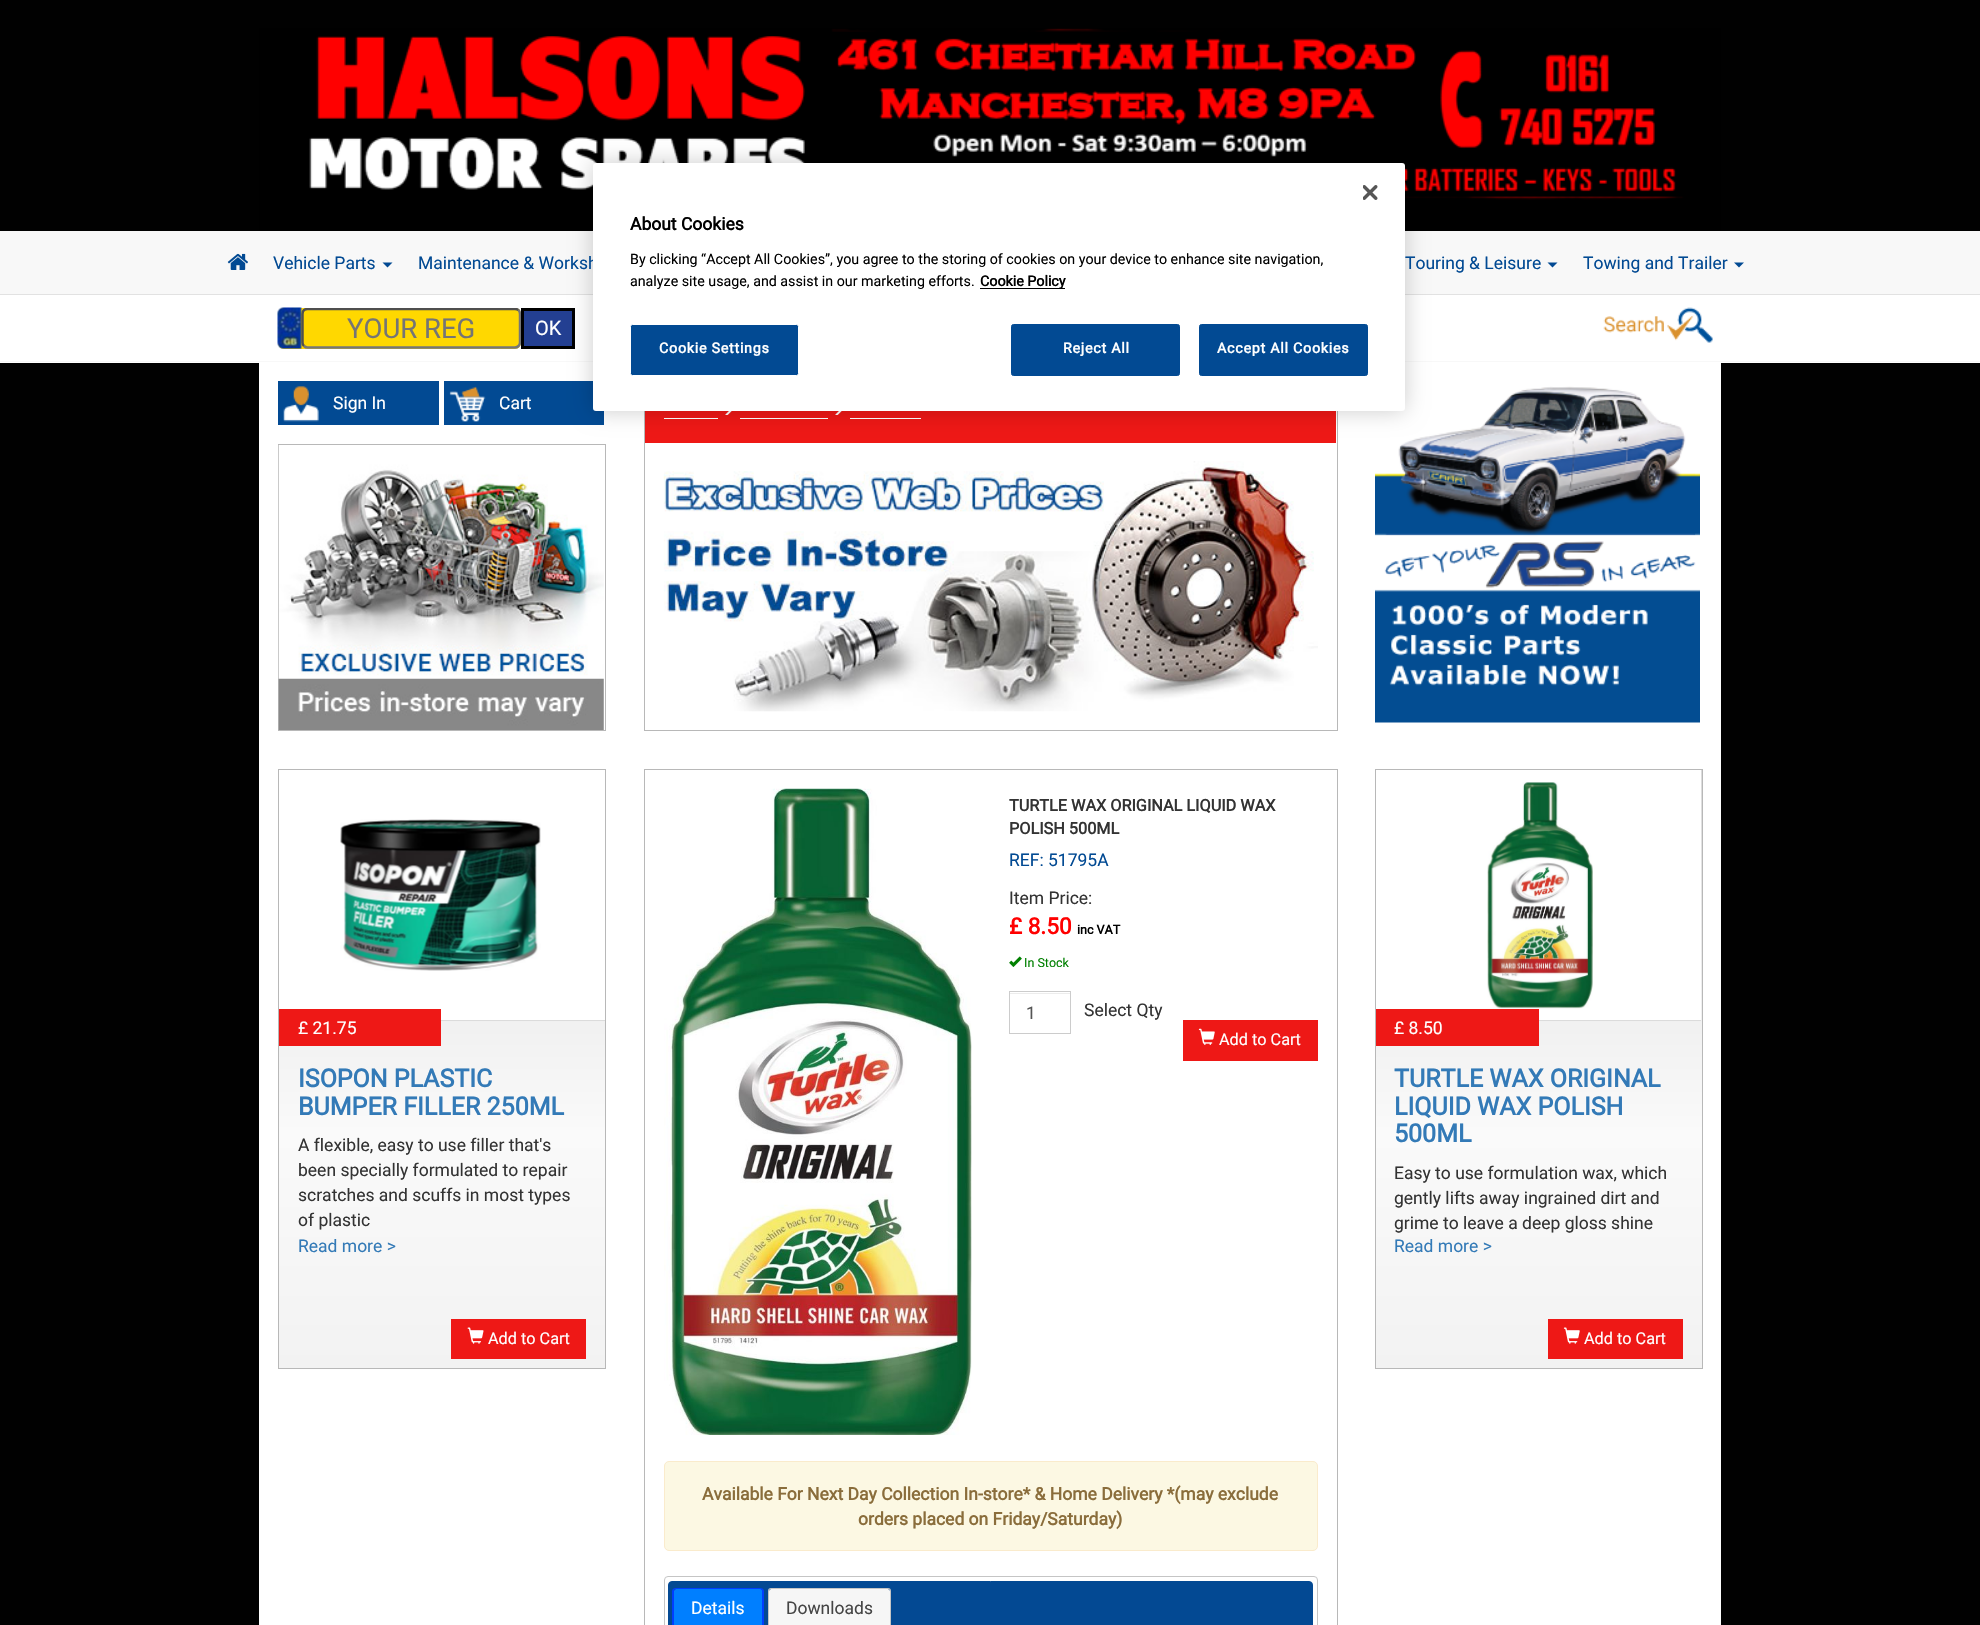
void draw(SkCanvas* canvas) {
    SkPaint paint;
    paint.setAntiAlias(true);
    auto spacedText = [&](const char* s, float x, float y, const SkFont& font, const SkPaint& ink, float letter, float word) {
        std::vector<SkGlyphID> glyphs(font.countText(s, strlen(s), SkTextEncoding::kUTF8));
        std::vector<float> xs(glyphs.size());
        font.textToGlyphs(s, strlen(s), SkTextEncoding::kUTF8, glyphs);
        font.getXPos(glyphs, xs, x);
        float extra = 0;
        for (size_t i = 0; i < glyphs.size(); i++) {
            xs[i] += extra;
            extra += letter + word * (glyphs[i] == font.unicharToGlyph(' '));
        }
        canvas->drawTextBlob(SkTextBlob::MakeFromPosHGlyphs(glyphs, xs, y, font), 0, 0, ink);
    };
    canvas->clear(0xFF010101);
    canvas->drawImageRect(SkImages::DeferredFromEncodedData(SkData::MakeFromFileName("img2.png")), SkRect::MakeXYWH(259, 28, 1462, 203), SkSamplingOptions());
    paint.setColor(0xFFF8F8F8);
    canvas->drawRect(SkRect::MakeXYWH(0, 231, 1980, 63), paint);
    paint.setColor(0xFFE2E2E2);
    canvas->drawRect(SkRect::MakeXYWH(0, 294, 1980, 1), paint);
    paint.setColor(0xFFFFFFFF);
    canvas->drawRect(SkRect::MakeXYWH(0, 295, 1980, 68), paint);
    paint.setColor(0xFFF8F8F8);
    canvas->drawRect(SkRect::MakeXYWH(0, 361, 1980, 1), paint);
    paint.setColor(0xFFFFD800);
    canvas->drawRoundRect(SkRect::MakeXYWH(278, 308, 243, 41), 6, 6, paint);
    paint.setStyle(SkPaint::kStroke_Style);
    paint.setStrokeWidth(2.5f);
    paint.setColor(0xFF767676);
    canvas->drawPath(SkPathBuilder().moveTo(518.5f, 310).cubicTo(519.5f, 311, 520, 312.5f, 520, 314).lineTo(520, 342.5f).cubicTo(520, 344, 519.5f, 345, 518.5f, 346).cubicTo(517.5f, 347, 516.5f, 347.5f, 515, 347.5f).lineTo(307.5f, 347.5f).cubicTo(306, 347.5f, 305, 347, 304, 346).detach(), paint);
    paint.setStyle(SkPaint::kFill_Style);
    paint.setColor(0xFF233F92);
    canvas->drawRect(SkRect::MakeXYWH(522.5f, 309.5f, 51, 38), paint);
    paint.setStyle(SkPaint::kStroke_Style);
    paint.setStrokeWidth(3);
    paint.setColor(0xFF000000);
    canvas->drawRect(SkRect::MakeXYWH(522.5f, 309.5f, 51, 38), paint);
    paint.setStyle(SkPaint::kFill_Style);
    paint.setColor(0xFFFFFFFF);
    canvas->drawRect(SkRect::MakeXYWH(259, 363, 1462, 1262), paint);
    paint.setColor(0xFF024A93);
    canvas->drawRect(SkRect::MakeXYWH(444, 381, 160, 44), paint);
    paint.setStyle(SkPaint::kStroke_Style);
    paint.setStrokeWidth(1);
    paint.setColor(0xFFB8B8B8);
    canvas->drawRect(SkRect::MakeXYWH(278.5f, 444.5f, 327, 286), paint);
    canvas->drawRect(SkRect::MakeXYWH(644.5f, 381.5f, 693, 349), paint);
    paint.setStyle(SkPaint::kFill_Style);
    paint.setColor(0xFFEE1816);
    canvas->drawRect(SkRect::MakeXYWH(645, 411, 691, 32), paint);
    canvas->drawImageRect(SkImages::DeferredFromEncodedData(SkData::MakeFromFileName("img9.png")), SkRect::MakeXYWH(725, 411, 7, 4), SkSamplingOptions());
    canvas->drawImageRect(SkImages::DeferredFromEncodedData(SkData::MakeFromFileName("img9.png")), SkRect::MakeXYWH(835, 411, 7, 4), SkSamplingOptions());
    paint.setColor(0xFFFFFFFF);
    canvas->drawRect(SkRect::MakeXYWH(664, 418, 54, 1), paint);
    canvas->drawRect(SkRect::MakeXYWH(740, 418, 88, 1), paint);
    canvas->drawRect(SkRect::MakeXYWH(850, 418, 71, 1), paint);
    canvas->drawImageRect(SkImages::DeferredFromEncodedData(SkData::MakeFromFileName("img11.png")), SkRect::MakeXYWH(1375, 386, 325, 337), SkSamplingOptions());
    paint.setColor(0x33000000);
    paint.setMaskFilter(SkMaskFilter::MakeBlur(kNormal_SkBlurStyle, 11));
    canvas->drawRoundRect(SkRect::MakeXYWH(593, 163, 812, 248), 3, 3, paint);
    paint.setMaskFilter(nullptr);
    SkFont font1(fontMgr->matchFamilyStyle("Roboto", SkFontStyle::Normal()), 17.5f);
    font1.setSubpixel(true);
    paint.setColor(0xFF024A93);
    canvas->drawString("Maintenance & Worksh", 418, 269, font1, paint);
    paint.setColor(0xFFFFFFFF);
    canvas->drawRoundRect(SkRect::MakeXYWH(593, 163, 812, 248), 3, 3, paint);
    canvas->drawImageRect(SkImages::DeferredFromEncodedData(SkData::MakeFromFileName("img1.png")), SkRect::MakeXYWH(1363, 185, 15, 15), SkSamplingOptions());
    SkFont font2(fontMgr->matchFamilyStyle("Roboto", SkFontStyle::Bold()), 17.5f);
    font2.setSubpixel(true);
    paint.setColor(0xFF000000);
    canvas->drawString("About Cookies", 630, 230, font2, paint);
    SkFont font3(fontMgr->matchFamilyStyle("Roboto", SkFontStyle::Normal()), 14.25f);
    font3.setSubpixel(true);
    canvas->drawString("By clicking “Accept All Cookies”, you agree to the storing of cookies on your device to enhance site navigation,", 630, 264, font3, paint);
    canvas->drawString("analyze site usage, and assist in our marketing efforts.", 630, 286, font3, paint);
    canvas->drawRect(SkRect::MakeXYWH(980, 288, 85, 1), paint);
    SkFont font4(fontMgr->matchFamilyStyle("Roboto", SkFontStyle::Bold()), 14.25f);
    font4.setSubpixel(true);
    canvas->drawString("Cookie Policy", 980, 286, font4, paint);
    paint.setColor(0xFF024A93);
    canvas->drawRoundRect(SkRect::MakeXYWH(630.5f, 324.5f, 168, 51), 2, 2, paint);
    paint.setStyle(SkPaint::kStroke_Style);
    paint.setColor(0xFFFFFFFF);
    canvas->drawRoundRect(SkRect::MakeXYWH(630.5f, 324.5f, 168, 51), 2, 2, paint);
    paint.setStyle(SkPaint::kFill_Style);
    spacedText("Cookie Settings", 659, 353, font4, paint, 0.75f, 0);
    paint.setColor(0xFF024A93);
    canvas->drawRoundRect(SkRect::MakeXYWH(1011.5f, 324.5f, 168, 51), 2, 2, paint);
    paint.setStyle(SkPaint::kStroke_Style);
    canvas->drawRoundRect(SkRect::MakeXYWH(1011.5f, 324.5f, 168, 51), 2, 2, paint);
    paint.setStyle(SkPaint::kFill_Style);
    paint.setColor(0xFFFFFFFF);
    spacedText("Reject All", 1063, 353, font4, paint, 0.75f, 0);
    paint.setColor(0xFF024A93);
    canvas->drawRoundRect(SkRect::MakeXYWH(1199.5f, 324.5f, 168, 51), 2, 2, paint);
    paint.setStyle(SkPaint::kStroke_Style);
    canvas->drawRoundRect(SkRect::MakeXYWH(1199.5f, 324.5f, 168, 51), 2, 2, paint);
    paint.setStyle(SkPaint::kFill_Style);
    paint.setColor(0xFFFFFFFF);
    spacedText("Accept All Cookies", 1217, 353, font4, paint, 0.75f, 0);
    canvas->drawImageRect(SkImages::DeferredFromEncodedData(SkData::MakeFromFileName("img3.png")), SkRect::MakeXYWH(227, 253, 21, 17), SkSamplingOptions());
    paint.setColor(0xFF024A93);
    canvas->drawString("Vehicle Parts", 273, 269, font1, paint);
    canvas->drawPath(SkPathBuilder().moveTo(382.5f, 262.5f).lineTo(392.5f, 262.5f).lineTo(387.5f, 267.5f).close().detach(), paint);
    canvas->drawString("Touring & Leisure", 1405, 269, font1, paint);
    canvas->drawPath(SkPathBuilder().moveTo(1547.5f, 262.5f).lineTo(1557.5f, 262.5f).lineTo(1552.5f, 267.5f).close().detach(), paint);
    canvas->drawString("Towing and Trailer", 1583, 269, font1, paint);
    canvas->drawPath(SkPathBuilder().moveTo(1734, 262.5f).lineTo(1744, 262.5f).lineTo(1739, 267.5f).close().detach(), paint);
    canvas->drawImageRect(SkImages::DeferredFromEncodedData(SkData::MakeFromFileName("img4.png")), SkRect::MakeXYWH(277, 307, 25, 42), SkSamplingOptions());
    canvas->save();
    canvas->clipRect(SkRect::MakeXYWH(278, 308, 326, 41));
    paint.setStyle(SkPaint::kStroke_Style);
    paint.setStrokeWidth(2.5f);
    paint.setColor(0xFF4F4F4F);
    canvas->drawPath(SkPathBuilder().moveTo(304, 346).cubicTo(303, 345, 302.5f, 344, 302.5f, 342.5f).lineTo(302.5f, 314).cubicTo(302.5f, 312.5f, 303, 311, 304, 310).cubicTo(305, 309.5f, 306, 309, 307.5f, 309).lineTo(515, 309).cubicTo(516.5f, 309, 517.5f, 309.5f, 518.5f, 310).detach(), paint);
    canvas->restore();
    SkFont font5(fontMgr->matchFamilyStyle("Roboto", SkFontStyle::Normal()), 27.5f);
    font5.setSubpixel(true);
    paint.setStyle(SkPaint::kFill_Style);
    paint.setColor(0xFF757575);
    canvas->drawString("YOUR REG", 347, 338, font5, paint);
    SkFont font6(fontMgr->matchFamilyStyle("Roboto", SkFontStyle::Normal()), 20);
    font6.setSubpixel(true);
    paint.setColor(0xFFFFFFFF);
    canvas->drawString("OK", 535, 335, font6, paint);
    canvas->drawImageRect(SkImages::DeferredFromEncodedData(SkData::MakeFromFileName("img5.png")), SkRect::MakeXYWH(1603, 307, 110, 36), SkSamplingOptions());
    paint.setColor(0xFF024A93);
    canvas->drawRect(SkRect::MakeXYWH(278, 381, 161, 44), paint);
    canvas->drawImageRect(SkImages::DeferredFromEncodedData(SkData::MakeFromFileName("img6.png")), SkRect::MakeXYWH(283, 386, 36, 36), SkSamplingOptions());
    paint.setColor(0xFFFFFFFF);
    canvas->drawString("Sign In", 333, 409, font1, paint);
    canvas->drawImageRect(SkImages::DeferredFromEncodedData(SkData::MakeFromFileName("img7.png")), SkRect::MakeXYWH(449, 386, 37, 36), SkSamplingOptions());
    canvas->drawString("Cart", 499, 409, font1, paint);
    canvas->drawImageRect(SkImages::DeferredFromEncodedData(SkData::MakeFromFileName("img8.png")), SkRect::MakeXYWH(278, 445, 326, 285), SkSamplingOptions());
    canvas->drawImageRect(SkImages::DeferredFromEncodedData(SkData::MakeFromFileName("img10.png")), SkRect::MakeXYWH(663, 461, 655, 251), SkSamplingOptions());
    {
        const SkColor colors[] = {0xFFDBDBDB, 0xFFFAFAFA, 0xFFEBEBEB};
        const float stops[] = {0, 0.45f, 1};
        const SkPoint ends[] = {{442, 770}, {442, 1577}};
        paint.setShader(SkGradientShader::MakeLinear(ends, colors, stops, 3, SkTileMode::kClamp));
        paint.setAlpha(255);
    }
    canvas->drawRect(SkRect::MakeXYWH(279, 1021, 326, 347), paint);
    paint.setStyle(SkPaint::kStroke_Style);
    paint.setStrokeWidth(1);
    paint.setShader(nullptr);
    paint.setColor(0xFFB8B8B8);
    canvas->drawRect(SkRect::MakeXYWH(278.5f, 769.5f, 327, 599), paint);
    paint.setStyle(SkPaint::kFill_Style);
    paint.setColor(0xFFDBDBDB);
    canvas->drawRect(SkRect::MakeXYWH(441, 1020, 164, 1), paint);
    canvas->drawImageRect(SkImages::DeferredFromEncodedData(SkData::MakeFromFileName("img12.png")), SkRect::MakeXYWH(340, 819, 201, 152), SkSamplingOptions());
    paint.setColor(0xFFEE1816);
    canvas->drawRect(SkRect::MakeXYWH(279, 1009, 162, 37), paint);
    paint.setColor(0xFFFFFFFF);
    canvas->drawString("£ 21.75", 298, 1034, font1, paint);
    SkFont font7(fontMgr->matchFamilyStyle("Roboto", SkFontStyle::Bold()), 25);
    font7.setSubpixel(true);
    paint.setColor(0xFF337AB7);
    canvas->drawString("ISOPON PLASTIC", 298, 1087, font7, paint);
    canvas->drawString("BUMPER FILLER 250ML", 298, 1115, font7, paint);
    paint.setColor(0xFF333333);
    canvas->drawString("A flexible, easy to use filler that's", 298, 1151, font1, paint);
    canvas->drawString("been specially formulated to repair", 298, 1176, font1, paint);
    canvas->drawString("scratches and scuffs in most types", 298, 1201, font1, paint);
    canvas->drawString("of plastic", 298, 1226, font1, paint);
    paint.setColor(0xFF337AB7);
    canvas->drawString("Read more >", 298, 1252, font1, paint);
    paint.setColor(0xFFEE1816);
    canvas->drawRect(SkRect::MakeXYWH(451, 1319, 135, 40), paint);
    canvas->drawImageRect(SkImages::DeferredFromEncodedData(SkData::MakeFromFileName("img13.png")), SkRect::MakeXYWH(467, 1327, 17, 17), SkSamplingOptions());
    SkFont font8(fontMgr->matchFamilyStyle("Roboto", SkFontStyle::Normal()), 16.25f);
    font8.setSubpixel(true);
    paint.setColor(0xFFFFFFFF);
    canvas->drawString("Add to Cart", 488, 1344, font8, paint);
    paint.setStyle(SkPaint::kStroke_Style);
    paint.setColor(0xFFB8B8B8);
    canvas->drawRect(SkRect::MakeXYWH(644.5f, 769.5f, 693, 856), paint);
    canvas->drawImageRect(SkImages::DeferredFromEncodedData(SkData::MakeFromFileName("img14.png")), SkRect::MakeXYWH(664, 788, 308, 647), SkSamplingOptions());
    SkFont font9(fontMgr->matchFamilyStyle("Roboto", SkFontStyle::Bold()), 16.25f);
    font9.setSubpixel(true);
    paint.setStyle(SkPaint::kFill_Style);
    paint.setColor(0xFF333333);
    canvas->drawString("TURTLE WAX ORIGINAL LIQUID WAX", 1009, 811, font9, paint);
    canvas->drawString("POLISH 500ML", 1009, 834, font9, paint);
    paint.setColor(0xFF024A93);
    canvas->drawString("REF: 51795A", 1009, 866, font1, paint);
    paint.setColor(0xFF333333);
    canvas->drawString("Item Price:", 1009, 904, font1, paint);
    SkFont font10(fontMgr->matchFamilyStyle("Roboto", SkFontStyle::Bold()), 22.5f);
    font10.setSubpixel(true);
    paint.setColor(0xFFFF0000);
    canvas->drawString("£ 8.50", 1009, 934, font10, paint);
    SkFont font11(fontMgr->matchFamilyStyle("Roboto", SkFontStyle::Bold()), 12.5f);
    font11.setSubpixel(true);
    paint.setColor(0xFF000000);
    canvas->drawString("inc VAT", 1077, 934, font11, paint);
    canvas->drawImageRect(SkImages::DeferredFromEncodedData(SkData::MakeFromFileName("img15.png")), SkRect::MakeXYWH(1009, 956, 13, 11), SkSamplingOptions());
    SkFont font12(fontMgr->matchFamilyStyle("Roboto", SkFontStyle::Normal()), 12.5f);
    font12.setSubpixel(true);
    paint.setColor(0xFF008000);
    canvas->drawString("In Stock", 1024, 967, font12, paint);
    paint.setColor(0xFFECECEC);
    canvas->drawRect(SkRect::MakeXYWH(1010, 993, 60, 1), paint);
    paint.setStyle(SkPaint::kStroke_Style);
    paint.setColor(0xFFCCCCCC);
    canvas->drawRect(SkRect::MakeXYWH(1009.5f, 991.5f, 61, 42), paint);
    paint.setStyle(SkPaint::kFill_Style);
    paint.setColor(0xFF555555);
    canvas->drawString("1", 1026, 1019, font1, paint);
    paint.setColor(0xFF333333);
    canvas->drawString("Select Qty", 1084, 1016, font1, paint);
    paint.setColor(0xFFEE1816);
    canvas->drawRect(SkRect::MakeXYWH(1183, 1020, 135, 41), paint);
    canvas->drawImageRect(SkImages::DeferredFromEncodedData(SkData::MakeFromFileName("img16.png")), SkRect::MakeXYWH(1198, 1028, 17, 17), SkSamplingOptions());
    paint.setColor(0xFFFFFFFF);
    canvas->drawString("Add to Cart", 1219, 1045, font8, paint);
    paint.setColor(0xFFFCF8E3);
    canvas->drawRoundRect(SkRect::MakeXYWH(664.5f, 1461.5f, 653, 89), 4.5f, 4.5f, paint);
    paint.setStyle(SkPaint::kStroke_Style);
    paint.setColor(0xFFFAEBCC);
    canvas->drawRoundRect(SkRect::MakeXYWH(664.5f, 1461.5f, 653, 89), 4.5f, 4.5f, paint);
    paint.setStyle(SkPaint::kFill_Style);
    paint.setColor(0xFF8A6D3B);
    canvas->drawString("Available For Next Day Collection In-store* & Home Delivery *(may exclude", 702, 1500, font2, paint);
    canvas->drawString("orders placed on Friday/Saturday)", 858, 1525, font2, paint);
    paint.setStyle(SkPaint::kStroke_Style);
    paint.setColor(0xFFC5C5C5);
    canvas->drawRoundRect(SkRect::MakeXYWH(664.5f, 1576.5f, 653, 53), 3.5f, 3.5f, paint);
    paint.setStyle(SkPaint::kFill_Style);
    paint.setColor(0xFF034993);
    canvas->drawRoundRect(SkRect::MakeXYWH(668.5f, 1581.5f, 644, 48), 3.5f, 3.5f, paint);
    paint.setStyle(SkPaint::kStroke_Style);
    canvas->drawRoundRect(SkRect::MakeXYWH(668.5f, 1581.5f, 644, 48), 3.5f, 3.5f, paint);
    paint.setStyle(SkPaint::kFill_Style);
    paint.setColor(0xFF007FFF);
    canvas->drawPath(SkPathBuilder().moveTo(676.5f, 1589).lineTo(760.5f, 1589).cubicTo(762, 1589, 763, 1590, 763, 1591.5f).lineTo(763, 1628).lineTo(674, 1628).lineTo(674, 1591.5f).cubicTo(674, 1590, 675, 1589, 676.5f, 1589).close().detach(), paint);
    paint.setColor(0xFF003EFF);
    canvas->drawPath(SkPathBuilder(SkPathFillType::kEvenOdd).moveTo(676, 1588).lineTo(760, 1588).cubicTo(762, 1588, 764, 1589, 764, 1591).lineTo(764, 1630).lineTo(672, 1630).lineTo(672, 1591).cubicTo(672, 1589, 674, 1588, 676, 1588).close().moveTo(676, 1589).lineTo(760, 1589).cubicTo(761, 1589, 762, 1590, 762, 1591).lineTo(762, 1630).lineTo(674, 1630).lineTo(674, 1591).cubicTo(674, 1590, 675, 1589, 676, 1589).close().detach(), paint);
    paint.setColor(0xFFFFFFFF);
    canvas->drawString("Details", 691, 1614, font1, paint);
    paint.setColor(0xFFF6F6F6);
    canvas->drawPath(SkPathBuilder().moveTo(771.5f, 1589).lineTo(887.5f, 1589).cubicTo(889, 1589, 890, 1590, 890, 1591.5f).lineTo(890, 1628).lineTo(769, 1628).lineTo(769, 1591.5f).cubicTo(769, 1590, 770, 1589, 771.5f, 1589).close().detach(), paint);
    paint.setColor(0xFFC5C5C5);
    canvas->drawPath(SkPathBuilder(SkPathFillType::kEvenOdd).moveTo(771, 1588).lineTo(888, 1588).cubicTo(890, 1588, 891, 1589, 891, 1591).lineTo(891, 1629).lineTo(768, 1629).lineTo(768, 1591).cubicTo(768, 1589, 769, 1588, 771, 1588).close().moveTo(771, 1589).lineTo(888, 1589).cubicTo(889, 1589, 890, 1590, 890, 1591).lineTo(890, 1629).lineTo(769, 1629).lineTo(769, 1591).cubicTo(769, 1590, 770, 1589, 771, 1589).close().detach(), paint);
    paint.setColor(0xFF454545);
    canvas->drawString("Downloads", 786, 1614, font1, paint);
    {
        const SkColor colors[] = {0xFFDBDBDB, 0xFFFAFAFA, 0xFFEBEBEB};
        const float stops[] = {0, 0.45f, 1};
        const SkPoint ends[] = {{1539, 770}, {1539, 1577}};
        paint.setShader(SkGradientShader::MakeLinear(ends, colors, stops, 3, SkTileMode::kClamp));
        paint.setAlpha(255);
    }
    canvas->drawRect(SkRect::MakeXYWH(1376, 770, 326, 598), paint);
    paint.setStyle(SkPaint::kStroke_Style);
    paint.setShader(nullptr);
    paint.setColor(0xFFB8B8B8);
    canvas->drawRect(SkRect::MakeXYWH(1375.5f, 769.5f, 327, 599), paint);
    paint.setStyle(SkPaint::kFill_Style);
    paint.setColor(0xFFFFFFFF);
    canvas->drawRect(SkRect::MakeXYWH(1376, 770, 325, 250), paint);
    paint.setColor(0xFFDBDBDB);
    canvas->drawRect(SkRect::MakeXYWH(1539, 1020, 162, 1), paint);
    canvas->drawImageRect(SkImages::DeferredFromEncodedData(SkData::MakeFromFileName("img17.png")), SkRect::MakeXYWH(1487, 782, 106, 227), SkSamplingOptions());
    paint.setColor(0xFFEE1816);
    canvas->drawRect(SkRect::MakeXYWH(1376, 1009, 163, 37), paint);
    paint.setColor(0xFFFFFFFF);
    canvas->drawString("£ 8.50", 1394, 1034, font1, paint);
    paint.setColor(0xFF337AB7);
    canvas->drawString("TURTLE WAX ORIGINAL", 1394, 1087, font7, paint);
    canvas->drawString("LIQUID WAX POLISH", 1394, 1115, font7, paint);
    canvas->drawString("500ML", 1394, 1142, font7, paint);
    paint.setColor(0xFF333333);
    canvas->drawString("Easy to use formulation wax, which", 1394, 1179, font1, paint);
    canvas->drawString("gently lifts away ingrained dirt and", 1394, 1204, font1, paint);
    canvas->drawString("grime to leave a deep gloss shine", 1394, 1229, font1, paint);
    paint.setColor(0xFF337AB7);
    canvas->drawString("Read more >", 1394, 1252, font1, paint);
    paint.setColor(0xFFEE1816);
    canvas->drawRect(SkRect::MakeXYWH(1548, 1319, 135, 40), paint);
    canvas->drawImageRect(SkImages::DeferredFromEncodedData(SkData::MakeFromFileName("img18.png")), SkRect::MakeXYWH(1563, 1327, 17, 17), SkSamplingOptions());
    paint.setColor(0xFFFFFFFF);
    canvas->drawString("Add to Cart", 1584, 1344, font8, paint);
}
